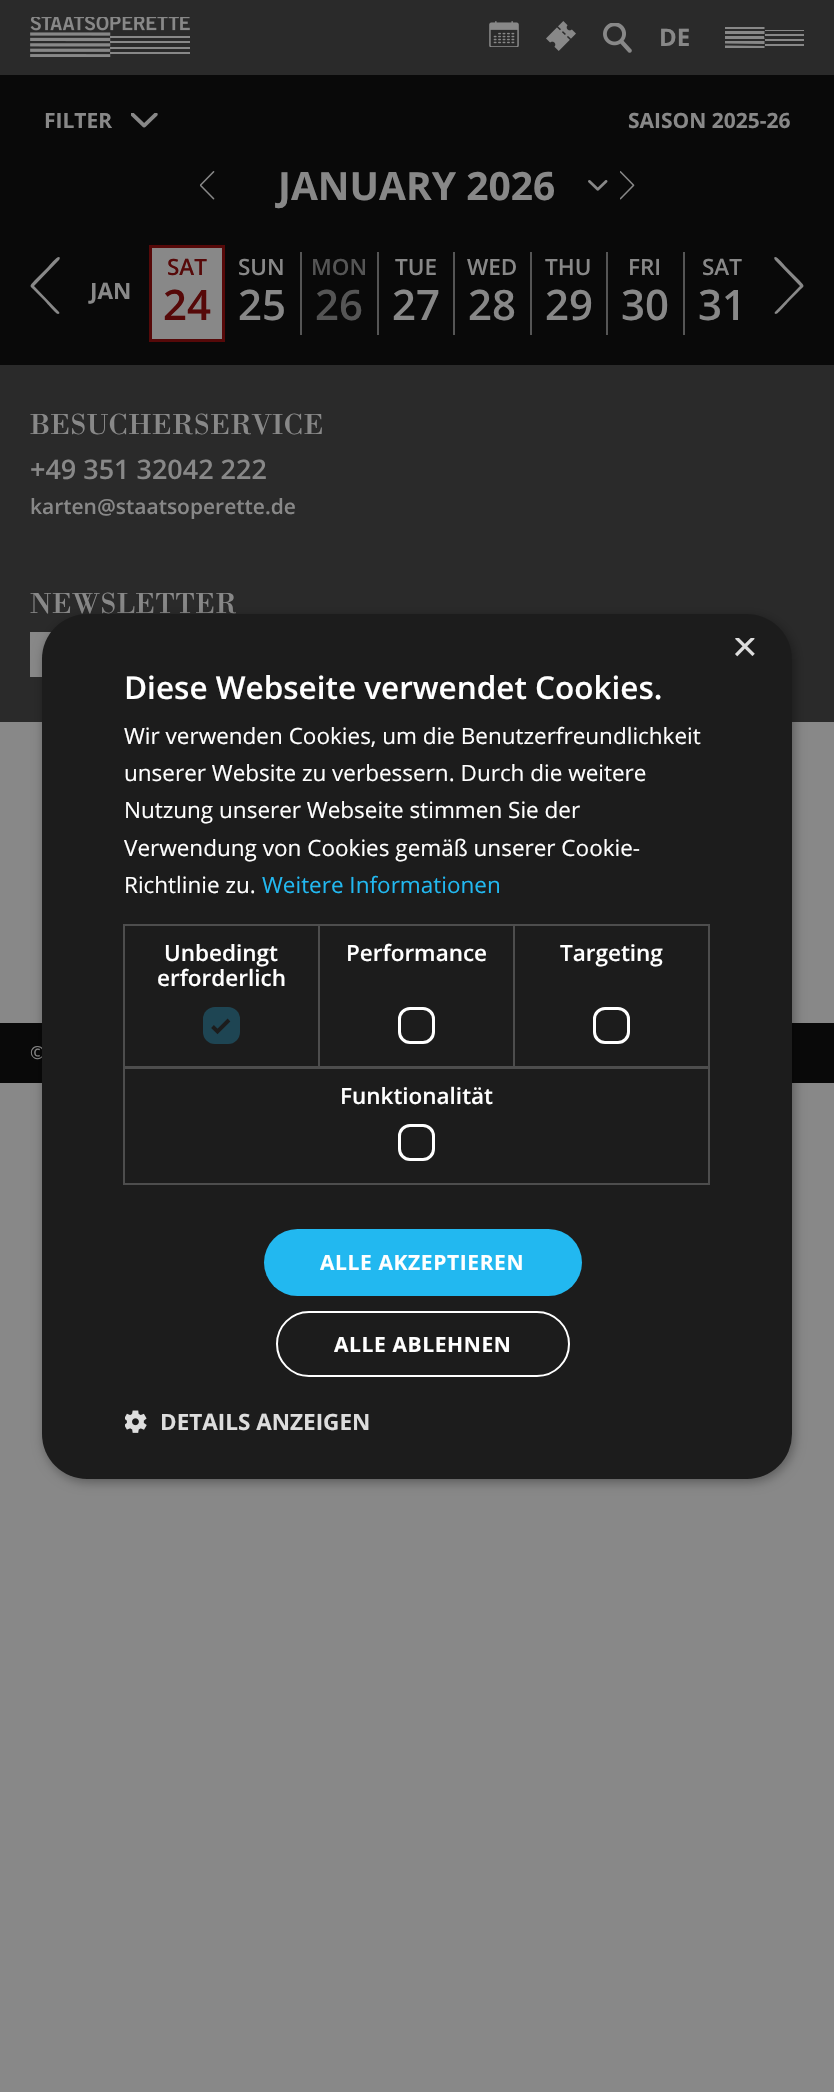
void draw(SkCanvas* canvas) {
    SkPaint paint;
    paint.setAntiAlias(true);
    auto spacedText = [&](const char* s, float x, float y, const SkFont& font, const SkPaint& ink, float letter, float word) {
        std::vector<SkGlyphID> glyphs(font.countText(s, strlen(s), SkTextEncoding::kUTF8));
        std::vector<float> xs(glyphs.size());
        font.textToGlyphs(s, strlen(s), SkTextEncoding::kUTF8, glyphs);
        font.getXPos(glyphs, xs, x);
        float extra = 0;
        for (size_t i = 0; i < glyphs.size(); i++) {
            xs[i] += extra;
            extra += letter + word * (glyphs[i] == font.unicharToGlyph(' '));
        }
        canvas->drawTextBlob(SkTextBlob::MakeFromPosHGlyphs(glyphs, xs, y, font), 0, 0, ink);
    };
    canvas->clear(0xFF888888);
    paint.setColor(0xFF2A2A2A);
    canvas->drawRect(SkRect::MakeXYWH(0, 0, 834, 75), paint);
    canvas->drawImageRect(SkImages::DeferredFromEncodedData(SkData::MakeFromFileName("img1.png")), SkRect::MakeXYWH(30, 17, 160, 40), SkSamplingOptions());
    canvas->drawImageRect(SkImages::DeferredFromEncodedData(SkData::MakeFromFileName("img2.png")), SkRect::MakeXYWH(489, 21, 30, 26), SkSamplingOptions());
    canvas->drawImageRect(SkImages::DeferredFromEncodedData(SkData::MakeFromFileName("img3.png")), SkRect::MakeXYWH(546, 21, 30, 30), SkSamplingOptions());
    canvas->drawImageRect(SkImages::DeferredFromEncodedData(SkData::MakeFromFileName("img4.png")), SkRect::MakeXYWH(603, 23, 29, 30), SkSamplingOptions());
    SkFont font1(fontMgr->matchFamilyStyle("Open Sans", SkFontStyle::Bold()), 24);
    font1.setSubpixel(true);
    paint.setColor(0xFF888888);
    canvas->drawString("DE", 659, 46, font1, paint);
    canvas->save();
    canvas->clipRect(SkRect::MakeXYWH(725, 27, 79, 21));
    canvas->drawPath(SkPathBuilder().moveTo(764.5f, 48.5f).lineTo(724.5f, 48.5f).lineTo(724.5f, 45.5f).lineTo(764.5f, 46).close().moveTo(764.5f, 44).lineTo(724.5f, 43.5f).lineTo(724.5f, 41).lineTo(764.5f, 41).close().moveTo(764.5f, 39).lineTo(724.5f, 39).lineTo(724.5f, 36).lineTo(764, 36).close().moveTo(764.5f, 34).lineTo(724.5f, 34).lineTo(724.5f, 31).lineTo(764.5f, 31).close().moveTo(764.5f, 29).lineTo(724.5f, 29).lineTo(724.5f, 26.5f).lineTo(764.5f, 26.5f).close().detach(), paint);
    canvas->restore();
    canvas->drawRect(SkRect::MakeXYWH(765, 30, 39, 1), paint);
    canvas->drawRect(SkRect::MakeXYWH(765, 34, 39, 2), paint);
    canvas->drawRect(SkRect::MakeXYWH(765, 39, 39, 2), paint);
    canvas->drawRect(SkRect::MakeXYWH(765, 44, 39, 2), paint);
    paint.setColor(0xFF090909);
    canvas->drawRect(SkRect::MakeXYWH(0, 75, 834, 290), paint);
    SkFont font2(fontMgr->matchFamilyStyle("Open Sans", SkFontStyle::Bold()), 21);
    font2.setSubpixel(true);
    paint.setColor(0xFF888888);
    canvas->drawString("FILTER", 44, 128, font2, paint);
    canvas->drawImageRect(SkImages::DeferredFromEncodedData(SkData::MakeFromFileName("img5.png")), SkRect::MakeXYWH(131, 113, 27, 15), SkSamplingOptions());
    canvas->drawString("SAISON 2025-26", 628, 128, font2, paint);
    canvas->drawImageRect(SkImages::DeferredFromEncodedData(SkData::MakeFromFileName("img6.png")), SkRect::MakeXYWH(200, 171, 15, 29), SkSamplingOptions());
    SkFont font3(fontMgr->matchFamilyStyle("Open Sans", SkFontStyle::Bold()), 39);
    font3.setSubpixel(true);
    canvas->drawString("JANUARY 2026", 278, 200, font3, paint);
    canvas->drawImageRect(SkImages::DeferredFromEncodedData(SkData::MakeFromFileName("img7.png")), SkRect::MakeXYWH(588, 180, 20, 11), SkSamplingOptions());
    canvas->drawImageRect(SkImages::DeferredFromEncodedData(SkData::MakeFromFileName("img8.png")), SkRect::MakeXYWH(620, 171, 15, 29), SkSamplingOptions());
    canvas->drawPath(SkPathBuilder().moveTo(58, 314).cubicTo(59, 314, 60, 313, 59, 312).lineTo(34, 286).lineTo(59, 260).cubicTo(60, 259, 60, 257, 59, 257).cubicTo(56, 257, 50, 265, 48, 267).lineTo(35, 280).cubicTo(29, 287, 29, 285, 35, 291).lineTo(44, 300).cubicTo(46, 302, 56, 314, 58, 314).close().detach(), paint);
    SkFont font4(fontMgr->matchFamilyStyle("Open Sans", SkFontStyle::Bold()), 22.5f);
    font4.setSubpixel(true);
    canvas->drawString("JAN", 90, 299, font4, paint);
    canvas->drawRect(SkRect::MakeXYWH(150.5f, 246.5f, 73, 94), paint);
    paint.setStyle(SkPaint::kStroke_Style);
    paint.setStrokeWidth(3);
    paint.setColor(0xFF560909);
    canvas->drawRect(SkRect::MakeXYWH(150.5f, 246.5f, 73, 94), paint);
    SkFont font5(fontMgr->matchFamilyStyle("Open Sans", SkFontStyle(600, SkFontStyle::kNormal_Width, SkFontStyle::kUpright_Slant)), 22.5f);
    font5.setSubpixel(true);
    paint.setStyle(SkPaint::kFill_Style);
    canvas->drawString("SAT", 167, 275, font5, paint);
    SkFont font6(fontMgr->matchFamilyStyle("Open Sans", SkFontStyle(600, SkFontStyle::kNormal_Width, SkFontStyle::kUpright_Slant)), 42);
    font6.setSubpixel(true);
    canvas->drawString("24", 163, 320, font6, paint);
    paint.setColor(0xFF888888);
    canvas->drawString("SUN", 238, 275, font5, paint);
    canvas->drawString("25", 238, 320, font6, paint);
    paint.setColor(0xFF555555);
    canvas->drawRect(SkRect::MakeXYWH(300, 252, 2, 83), paint);
    canvas->drawString("MON", 311, 275, font5, paint);
    canvas->drawString("26", 315, 320, font6, paint);
    canvas->drawRect(SkRect::MakeXYWH(377, 252, 2, 83), paint);
    paint.setColor(0xFF888888);
    canvas->drawString("TUE", 395, 275, font5, paint);
    canvas->drawString("27", 392, 320, font6, paint);
    paint.setColor(0xFF555555);
    canvas->drawRect(SkRect::MakeXYWH(453, 252, 2, 83), paint);
    paint.setColor(0xFF888888);
    canvas->drawString("WED", 467, 275, font5, paint);
    canvas->drawString("28", 468, 320, font6, paint);
    paint.setColor(0xFF555555);
    canvas->drawRect(SkRect::MakeXYWH(530, 252, 2, 83), paint);
    paint.setColor(0xFF888888);
    canvas->drawString("THU", 545, 275, font5, paint);
    canvas->drawString("29", 545, 320, font6, paint);
    paint.setColor(0xFF555555);
    canvas->drawRect(SkRect::MakeXYWH(606, 252, 2, 83), paint);
    paint.setColor(0xFF888888);
    canvas->drawString("FRI", 628, 275, font5, paint);
    canvas->drawString("30", 621, 320, font6, paint);
    paint.setColor(0xFF555555);
    canvas->drawRect(SkRect::MakeXYWH(683, 252, 2, 83), paint);
    paint.setColor(0xFF888888);
    canvas->drawString("SAT", 702, 275, font5, paint);
    canvas->drawString("31", 698, 320, font6, paint);
    canvas->drawPath(SkPathBuilder().moveTo(776, 314).cubicTo(778, 314, 788, 302, 790, 300).lineTo(799, 291).cubicTo(805, 285, 805, 287, 799, 280).lineTo(786, 267).cubicTo(784, 265, 778, 257, 775, 257).cubicTo(774, 257, 774, 259, 775, 260).lineTo(800, 286).lineTo(775, 312).cubicTo(774, 313, 775, 314, 776, 314).close().detach(), paint);
    paint.setColor(0xFF2A2A2A);
    canvas->drawRect(SkRect::MakeXYWH(0, 365, 834, 357), paint);
    SkFont font7(fontMgr->matchFamilyStyle("Bodoni", SkFontStyle::Normal()), 30);
    font7.setSubpixel(true);
    paint.setColor(0xFF888888);
    canvas->drawString("BESUCHERSERVICE", 30, 434, font7, paint);
    SkFont font8(fontMgr->matchFamilyStyle("Open Sans", SkFontStyle(600, SkFontStyle::kNormal_Width, SkFontStyle::kUpright_Slant)), 27);
    font8.setSubpixel(true);
    canvas->drawString("+49 351 32042 222", 30, 479, font8, paint);
    SkFont font9(fontMgr->matchFamilyStyle("Open Sans", SkFontStyle(600, SkFontStyle::kNormal_Width, SkFontStyle::kUpright_Slant)), 21);
    font9.setSubpixel(true);
    canvas->drawString("karten@staatsoperette.de", 30, 514, font9, paint);
    canvas->drawString("NEWSLETTER", 30, 613, font7, paint);
    canvas->drawRect(SkRect::MakeXYWH(30, 632, 21, 45), paint);
    paint.setColor(0xFF090909);
    canvas->drawRect(SkRect::MakeXYWH(0, 1023, 834, 60), paint);
    SkFont font10(fontMgr->matchFamilyStyle("Open Sans", SkFontStyle::Normal()), 18);
    font10.setSubpixel(true);
    paint.setColor(0xFF888888);
    canvas->drawString("©", 30, 1059, font10, paint);
    paint.setColor(0x59000000);
    paint.setMaskFilter(SkMaskFilter::MakeBlur(kNormal_SkBlurStyle, 6));
    canvas->drawRoundRect(SkRect::MakeXYWH(44, 617, 750, 865), 45, 45, paint);
    paint.setMaskFilter(nullptr);
    paint.setColor(0xFF1C1C1C);
    canvas->drawRoundRect(SkRect::MakeXYWH(42, 614, 750, 865), 45, 45, paint);
    canvas->save();
    canvas->clipRect(SkRect::MakeXYWH(732, 638, 23, 22));
    SkFont font11(fontMgr->matchFamilyStyle("Liberation Sans", SkFontStyle::Normal()), 44);
    font11.setSubpixel(true);
    paint.setColor(0xFFDDDDDD);
    canvas->drawString("×", 732, 661, font11, paint);
    canvas->restore();
    SkFont font12(fontMgr->matchFamilyStyle("Open Sans", SkFontStyle(600, SkFontStyle::kNormal_Width, SkFontStyle::kUpright_Slant)), 31.5f);
    font12.setSubpixel(true);
    paint.setColor(0xFFFFFFFF);
    canvas->drawString("Diese Webseite verwendet Cookies.", 124, 699, font12, paint);
    SkFont font13(fontMgr->matchFamilyStyle("Open Sans", SkFontStyle::Normal()), 22.5f);
    font13.setSubpixel(true);
    canvas->drawString("Wir verwenden Cookies, um die Benutzerfreundlichkeit", 124, 744, font13, paint);
    canvas->drawString("unserer Website zu verbessern. Durch die weitere", 124, 781, font13, paint);
    canvas->drawString("Nutzung unserer Webseite stimmen Sie der", 124, 818, font13, paint);
    canvas->drawString("Verwendung von Cookies gemäß unserer Cookie-", 124, 856, font13, paint);
    canvas->drawString("Richtlinie zu.", 124, 893, font13, paint);
    paint.setColor(0xFF22B8F0);
    canvas->drawString("Weitere Informationen", 262, 893, font13, paint);
    paint.setStyle(SkPaint::kStroke_Style);
    paint.setStrokeWidth(2);
    paint.setColor(0xFF4D4D4D);
    canvas->drawRect(SkRect::MakeXYWH(124, 925, 195, 142), paint);
    paint.setStyle(SkPaint::kFill_Style);
    paint.setColor(0xFFFFFFFF);
    canvas->drawString("Unbedingt", 164, 961, font5, paint);
    canvas->drawString("erforderlich", 157, 986, font5, paint);
    paint.setColor(0xFF1E4553);
    canvas->drawRoundRect(SkRect::MakeXYWH(203, 1007, 37, 37), 12, 12, paint);
    paint.setStyle(SkPaint::kStroke_Style);
    paint.setStrokeWidth(3.9f);
    paint.setColor(0xFF1C1C1C);
    canvas->drawPath(SkPathBuilder().moveTo(212.5f, 1026.5f).lineTo(217.5f, 1031.5f).lineTo(229, 1020).detach(), paint);
    paint.setStrokeWidth(2);
    paint.setColor(0xFF4D4D4D);
    canvas->drawRect(SkRect::MakeXYWH(319, 925, 195, 142), paint);
    paint.setStyle(SkPaint::kFill_Style);
    paint.setColor(0xFFFFFFFF);
    canvas->drawString("Performance", 346, 961, font5, paint);
    paint.setStyle(SkPaint::kStroke_Style);
    paint.setStrokeWidth(3);
    canvas->drawRoundRect(SkRect::MakeXYWH(399.5f, 1008.5f, 34, 34), 10.5f, 10.5f, paint);
    paint.setStrokeWidth(2);
    paint.setColor(0xFF4D4D4D);
    canvas->drawRect(SkRect::MakeXYWH(514, 925, 195, 142), paint);
    paint.setStyle(SkPaint::kFill_Style);
    paint.setColor(0xFFFFFFFF);
    canvas->drawString("Targeting", 560, 961, font5, paint);
    paint.setStyle(SkPaint::kStroke_Style);
    paint.setStrokeWidth(3);
    canvas->drawRoundRect(SkRect::MakeXYWH(594.5f, 1008.5f, 34, 34), 10.5f, 10.5f, paint);
    paint.setStrokeWidth(2);
    paint.setColor(0xFF4D4D4D);
    canvas->drawRect(SkRect::MakeXYWH(124, 1068, 585, 116), paint);
    paint.setStyle(SkPaint::kFill_Style);
    paint.setColor(0xFFFFFFFF);
    canvas->drawString("Funktionalität", 340, 1104, font5, paint);
    paint.setStyle(SkPaint::kStroke_Style);
    paint.setStrokeWidth(3);
    canvas->drawRoundRect(SkRect::MakeXYWH(399.5f, 1125.5f, 34, 34), 10.5f, 10.5f, paint);
    paint.setStyle(SkPaint::kFill_Style);
    paint.setColor(0xFF22B8F0);
    canvas->drawRoundRect(SkRect::MakeXYWH(264, 1229, 318, 67), 33.5f, 33.5f, paint);
    paint.setColor(0xFFFFFFFF);
    spacedText("ALLE AKZEPTIEREN", 320, 1270, font2, paint, 0.6f, 0);
    paint.setStyle(SkPaint::kStroke_Style);
    paint.setStrokeWidth(2);
    canvas->drawRoundRect(SkRect::MakeXYWH(277, 1312, 292, 64), 32, 32, paint);
    paint.setStyle(SkPaint::kFill_Style);
    spacedText("ALLE ABLEHNEN", 334, 1352, font2, paint, 0.6f, 0);
    canvas->drawImageRect(SkImages::DeferredFromEncodedData(SkData::MakeFromFileName("img9.png")), SkRect::MakeXYWH(125, 1410, 22, 23), SkSamplingOptions());
    paint.setColor(0xFFDDDDDD);
    canvas->drawString("DETAILS ANZEIGEN", 160, 1430, font4, paint);
}
